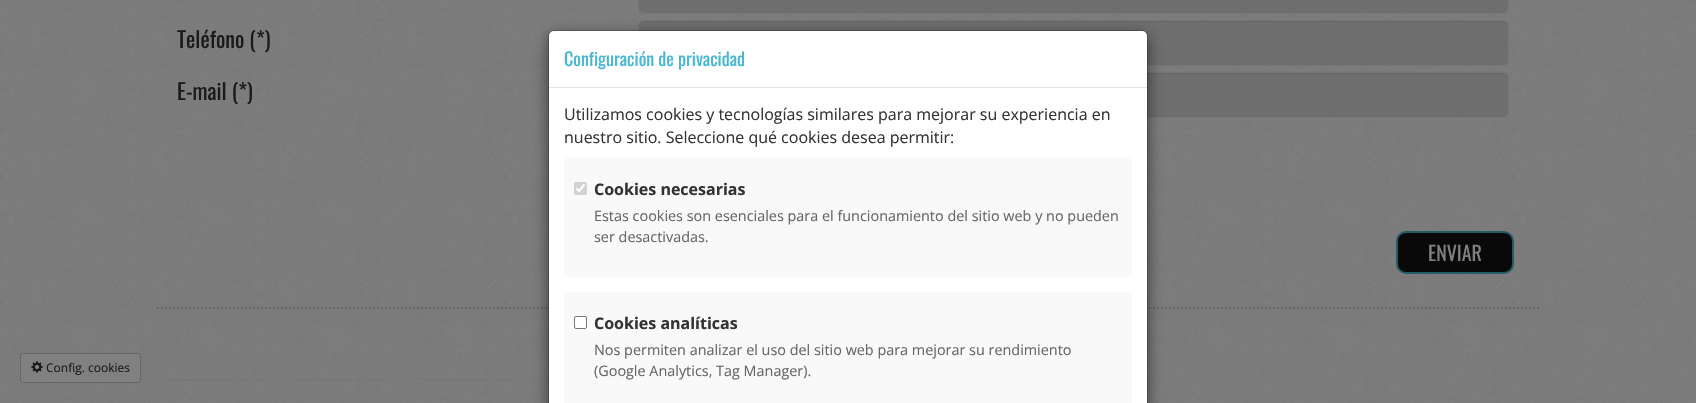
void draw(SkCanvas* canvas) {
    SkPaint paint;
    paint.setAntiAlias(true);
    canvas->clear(0xFFFFFFFF);
    canvas->drawImageRect(SkImages::DeferredFromEncodedData(SkData::MakeFromFileName("img1.png")), SkRect::MakeXYWH(0, 0, 1696, 403), SkSamplingOptions());
    paint.setStyle(SkPaint::kStroke_Style);
    paint.setStrokeWidth(2);
    paint.setColor(0xFF666666);
    paint.setPathEffect(SkDashPathEffect::Make({{2, 2}}, 0));
    canvas->drawPath(SkPathBuilder().moveTo(157, 308).lineTo(1539, 308).detach(), paint);
    paint.setPathEffect(nullptr);
    paint.setStyle(SkPaint::kFill_Style);
    paint.setColor(0xFF6F6E6E);
    canvas->drawRoundRect(SkRect::MakeXYWH(638.5f, -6.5f, 870, 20), 5.5f, 5.5f, paint);
    paint.setStyle(SkPaint::kStroke_Style);
    paint.setStrokeWidth(1);
    paint.setColor(0xFF777777);
    canvas->drawRoundRect(SkRect::MakeXYWH(638.5f, -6.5f, 870, 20), 5.5f, 5.5f, paint);
    SkFont font1(fontMgr->matchFamilyStyle("Oswald", SkFontStyle::Normal()), 22);
    font1.setSubpixel(true);
    paint.setStyle(SkPaint::kFill_Style);
    paint.setColor(0xFF1A1A1A);
    canvas->drawString("Teléfono (*)", 177, 48, font1, paint);
    paint.setColor(0xFF6F6E6E);
    canvas->drawRoundRect(SkRect::MakeXYWH(638, 20, 871, 46), 6, 6, paint);
    paint.setColor(0xFF676666);
    canvas->drawPath(SkPathBuilder().moveTo(644, 22).lineTo(1503, 22).cubicTo(1506, 22, 1508, 24, 1508, 27).lineTo(1508, 26).cubicTo(1508, 23, 1506, 21, 1503, 21).lineTo(644, 21).cubicTo(641, 21, 639, 23, 639, 26).lineTo(639, 27).cubicTo(639, 24, 641, 22, 644, 22).close().detach(), paint);
    paint.setStyle(SkPaint::kStroke_Style);
    paint.setColor(0xFF777777);
    canvas->drawRoundRect(SkRect::MakeXYWH(638.5f, 20.5f, 870, 45), 5.5f, 5.5f, paint);
    paint.setStyle(SkPaint::kFill_Style);
    paint.setColor(0xFF1A1A1A);
    canvas->drawString("E-mail (*)", 177, 100, font1, paint);
    paint.setColor(0xFF6F6E6E);
    canvas->drawRoundRect(SkRect::MakeXYWH(638, 72, 871, 46), 6, 6, paint);
    paint.setColor(0xFF676666);
    canvas->drawPath(SkPathBuilder().moveTo(644, 74).lineTo(1503, 74).cubicTo(1506, 74, 1508, 76, 1508, 79).lineTo(1508, 78).cubicTo(1508, 75, 1506, 73, 1503, 73).lineTo(644, 73).cubicTo(641, 73, 639, 75, 639, 78).lineTo(639, 79).cubicTo(639, 76, 641, 74, 644, 74).close().detach(), paint);
    paint.setStyle(SkPaint::kStroke_Style);
    paint.setColor(0xFF777777);
    canvas->drawRoundRect(SkRect::MakeXYWH(638.5f, 72.5f, 870, 45), 5.5f, 5.5f, paint);
    paint.setStyle(SkPaint::kFill_Style);
    paint.setColor(0xFF090909);
    canvas->drawRoundRect(SkRect::MakeXYWH(1397, 232, 116, 41), 9, 9, paint);
    paint.setStyle(SkPaint::kStroke_Style);
    paint.setStrokeWidth(2);
    paint.setColor(0xFF225C69);
    canvas->drawRoundRect(SkRect::MakeXYWH(1397, 232, 116, 41), 9, 9, paint);
    SkFont font2(fontMgr->matchFamilyStyle("Oswald", SkFontStyle::Normal()), 20);
    font2.setSubpixel(true);
    paint.setStyle(SkPaint::kFill_Style);
    paint.setColor(0xFF808080);
    canvas->drawString("ENVIAR", 1428, 261, font2, paint);
    paint.setColor(0xFF777777);
    canvas->drawRect(SkRect::MakeXYWH(142, 379, 407, 1), paint);
    paint.setColor(0xFF808080);
    canvas->drawRoundRect(SkRect::MakeXYWH(20.5f, 353.5f, 120, 29), 2.5f, 2.5f, paint);
    paint.setStyle(SkPaint::kStroke_Style);
    paint.setStrokeWidth(1);
    paint.setColor(0xFF666666);
    canvas->drawRoundRect(SkRect::MakeXYWH(20.5f, 353.5f, 120, 29), 2.5f, 2.5f, paint);
    canvas->drawImageRect(SkImages::DeferredFromEncodedData(SkData::MakeFromFileName("img2.png")), SkRect::MakeXYWH(31, 361, 12, 12), SkSamplingOptions());
    SkFont font3(fontMgr->matchFamilyStyle("Open Sans", SkFontStyle::Normal()), 12);
    font3.setSubpixel(true);
    paint.setStyle(SkPaint::kFill_Style);
    paint.setColor(0xFF1A1A1A);
    canvas->drawString("Config. cookies", 46, 372, font3, paint);
    paint.setColor(0x80000000);
    paint.setMaskFilter(SkMaskFilter::MakeBlur(kNormal_SkBlurStyle, 7.5f));
    canvas->drawRoundRect(SkRect::MakeXYWH(548, 35, 600, 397), 6, 6, paint);
    paint.setMaskFilter(nullptr);
    paint.setColor(0xFFFFFFFF);
    canvas->drawPath(SkPathBuilder().moveTo(554, 31).lineTo(1142, 31).cubicTo(1145, 31, 1147, 33, 1147, 36).lineTo(1147, 403).lineTo(549, 403).lineTo(549, 36).cubicTo(549, 33, 551, 31, 554, 31).close().detach(), paint);
    paint.setStyle(SkPaint::kStroke_Style);
    paint.setColor(0x33000000);
    canvas->drawRoundRect(SkRect::MakeXYWH(548.5f, 30.5f, 599, 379), 5.5f, 5.5f, paint);
    paint.setStyle(SkPaint::kFill_Style);
    paint.setColor(0xFFE5E5E5);
    canvas->drawRect(SkRect::MakeXYWH(549, 87, 598, 1), paint);
    SkFont font4(fontMgr->matchFamilyStyle("Oswald", SkFontStyle::Normal()), 18);
    font4.setSubpixel(true);
    paint.setColor(0xFF44B7D2);
    canvas->drawString("Configuración de privacidad", 564, 66, font4, paint);
    SkFont font5(fontMgr->matchFamilyStyle("Open Sans", SkFontStyle::Normal()), 16);
    font5.setSubpixel(true);
    paint.setColor(0xFF333333);
    canvas->drawString("Utilizamos cookies y tecnologías similares para mejorar su experiencia en", 564, 120, font5, paint);
    canvas->drawString("nuestro sitio. Seleccione qué cookies desea permitir:", 564, 143, font5, paint);
    paint.setColor(0xFFF9F9F9);
    canvas->drawRoundRect(SkRect::MakeXYWH(564, 158, 568, 119), 4, 4, paint);
    paint.setColor(0xFFD2D2D2);
    canvas->drawRoundRect(SkRect::MakeXYWH(574, 182, 13, 13), 2, 2, paint);
    paint.setStyle(SkPaint::kStroke_Style);
    paint.setStrokeWidth(2.1f);
    paint.setColor(0xFFFFFFFF);
    canvas->drawPath(SkPathBuilder().moveTo(576.5f, 188.5f).lineTo(579, 191).lineTo(584.5f, 184.5f).detach(), paint);
    SkFont font6(fontMgr->matchFamilyStyle("Open Sans", SkFontStyle::Bold()), 16);
    font6.setSubpixel(true);
    paint.setStyle(SkPaint::kFill_Style);
    paint.setColor(0xFF333333);
    canvas->drawString("Cookies necesarias", 594, 195, font6, paint);
    SkFont font7(fontMgr->matchFamilyStyle("Open Sans", SkFontStyle::Normal()), 14.4f);
    font7.setSubpixel(true);
    paint.setColor(0xFF666666);
    canvas->drawString("Estas cookies son esenciales para el funcionamiento del sitio web y no pueden", 594, 221, font7, paint);
    canvas->drawString("ser desactivadas.", 594, 242, font7, paint);
    paint.setColor(0xFFF9F9F9);
    canvas->drawPath(SkPathBuilder().moveTo(568, 292).lineTo(1128, 292).cubicTo(1130, 292, 1132, 294, 1132, 296).lineTo(1132, 403).lineTo(564, 403).lineTo(564, 296).cubicTo(564, 294, 566, 292, 568, 292).close().detach(), paint);
    paint.setColor(0xFFFFFFFF);
    canvas->drawRoundRect(SkRect::MakeXYWH(574.5f, 316.5f, 12, 12), 1.5f, 1.5f, paint);
    paint.setStyle(SkPaint::kStroke_Style);
    paint.setStrokeWidth(1);
    paint.setColor(0xFF767676);
    canvas->drawRoundRect(SkRect::MakeXYWH(574.5f, 316.5f, 12, 12), 1.5f, 1.5f, paint);
    paint.setStyle(SkPaint::kFill_Style);
    paint.setColor(0xFF333333);
    canvas->drawString("Cookies analíticas", 594, 329, font6, paint);
    paint.setColor(0xFF666666);
    canvas->drawString("Nos permiten analizar el uso del sitio web para mejorar su rendimiento", 594, 355, font7, paint);
    canvas->drawString("(Google Analytics, Tag Manager).", 594, 376, font7, paint);
}
